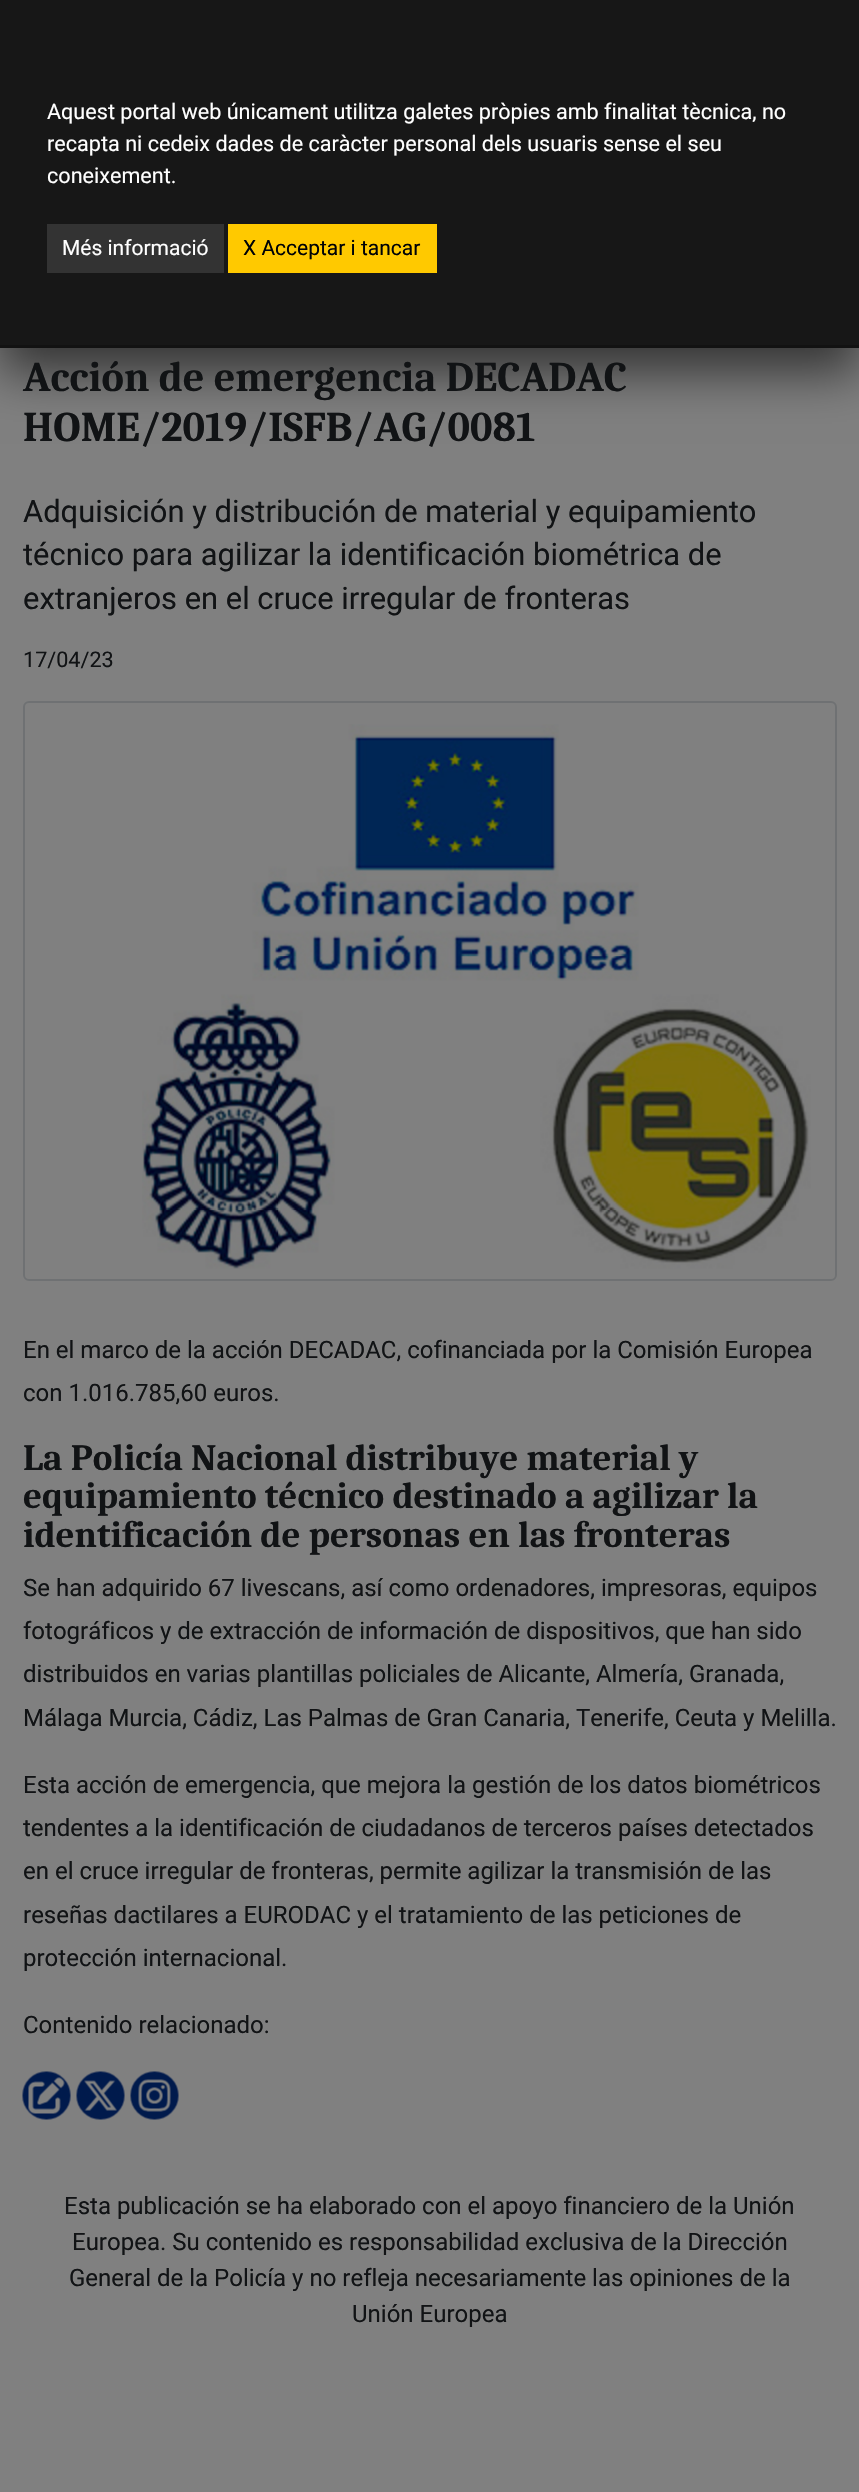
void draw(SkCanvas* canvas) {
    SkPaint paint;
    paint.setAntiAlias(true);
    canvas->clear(0xFF808080);
    paint.setColor(0x99000000);
    paint.setMaskFilter(SkMaskFilter::MakeBlur(kNormal_SkBlurStyle, 24));
    canvas->drawRect(SkRect::MakeXYWH(0, 24, 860, 348), paint);
    paint.setMaskFilter(nullptr);
    paint.setColor(0xFF171717);
    canvas->drawRect(SkRect::MakeXYWH(0, 0, 859, 345), paint);
    paint.setColor(0xFF121212);
    canvas->drawRect(SkRect::MakeXYWH(0, 345, 859, 3), paint);
    SkFont font1(fontMgr->matchFamilyStyle("Roboto", SkFontStyle::Normal()), 21.6f);
    font1.setSubpixel(true);
    paint.setColor(0xFFFFFFFF);
    canvas->drawString("Aquest portal web únicament utilitza galetes pròpies amb finalitat tècnica, no", 47, 119, font1, paint);
    canvas->drawString("recapta ni cedeix dades de caràcter personal dels usuaris sense el seu", 47, 151, font1, paint);
    canvas->drawString("coneixement.", 47, 183, font1, paint);
    paint.setColor(0xFF333333);
    canvas->drawRect(SkRect::MakeXYWH(47, 224, 177, 49), paint);
    SkFont font2(fontMgr->matchFamilyStyle("Roboto", SkFontStyle::Normal()), 21);
    font2.setSubpixel(true);
    paint.setColor(0xFFFFFFFF);
    canvas->drawString("Més informació", 62, 255, font2, paint);
    paint.setColor(0xFFFFC900);
    canvas->drawRect(SkRect::MakeXYWH(228, 224, 209, 49), paint);
    paint.setColor(0xFF000206);
    canvas->drawString("X Acceptar i tancar", 243, 255, font2, paint);
    SkFont font3(fontMgr->matchFamilyStyle("Caladea", SkFontStyle::Bold()), 42.2f);
    font3.setSubpixel(true);
    paint.setColor(0xFF111315);
    canvas->drawString("Acción de emergencia DECADAC", 23, 391, font3, paint);
    canvas->drawString("HOME/2019/ISFB/AG/0081", 23, 441, font3, paint);
    SkFont font4(fontMgr->matchFamilyStyle("Roboto", SkFontStyle::Normal()), 30.9f);
    font4.setSubpixel(true);
    canvas->drawString("Adquisición y distribución de material y equipamiento", 23, 522, font4, paint);
    canvas->drawString("técnico para agilizar la identificación biométrica de", 23, 565, font4, paint);
    canvas->drawString("extranjeros en el cruce irregular de fronteras", 23, 609, font4, paint);
    canvas->drawString("17/04/23", 23, 667, font1, paint);
    paint.setStyle(SkPaint::kStroke_Style);
    paint.setStrokeWidth(2);
    paint.setColor(0xFF6F7173);
    canvas->drawRoundRect(SkRect::MakeXYWH(24, 702, 812, 578), 5, 5, paint);
    canvas->drawImageRect(SkImages::DeferredFromEncodedData(SkData::MakeFromFileName("img1.png")), SkRect::MakeXYWH(142, 724, 669, 545), SkSamplingOptions());
    SkFont font5(fontMgr->matchFamilyStyle("Roboto", SkFontStyle::Normal()), 24);
    font5.setSubpixel(true);
    paint.setStyle(SkPaint::kFill_Style);
    paint.setColor(0xFF111315);
    canvas->drawString("En el marco de la acción DECADAC, cofinanciada por la Comisión Europea", 23, 1358, font5, paint);
    canvas->drawString("con 1.016.785,60 euros.", 23, 1401, font5, paint);
    SkFont font6(fontMgr->matchFamilyStyle("Caladea", SkFontStyle::Bold()), 37.1f);
    font6.setSubpixel(true);
    canvas->drawString("La Policía Nacional distribuye material y", 23, 1470, font6, paint);
    canvas->drawString("equipamiento técnico destinado a agilizar la", 23, 1508, font6, paint);
    canvas->drawString("identificación de personas en las fronteras", 23, 1547, font6, paint);
    canvas->drawString("Se han adquirido 67 livescans, así como ordenadores, impresoras, equipos", 23, 1596, font5, paint);
    canvas->drawString("fotográficos y de extracción de información de dispositivos, que han sido", 23, 1639, font5, paint);
    canvas->drawString("distribuidos en varias plantillas policiales de Alicante, Almería, Granada,", 23, 1682, font5, paint);
    canvas->drawString("Málaga Murcia, Cádiz, Las Palmas de Gran Canaria, Tenerife, Ceuta y Melilla.", 23, 1726, font5, paint);
    canvas->drawString("Esta acción de emergencia, que mejora la gestión de los datos biométricos", 23, 1793, font5, paint);
    canvas->drawString("tendentes a la identificación de ciudadanos de terceros países detectados", 23, 1836, font5, paint);
    canvas->drawString("en el cruce irregular de fronteras, permite agilizar la transmisión de las", 23, 1879, font5, paint);
    canvas->drawString("reseñas dactilares a EURODAC y el tratamiento de las peticiones de", 23, 1923, font5, paint);
    canvas->drawString("protección internacional.", 23, 1966, font5, paint);
    canvas->drawString("Contenido relacionado:", 23, 2033, font5, paint);
    canvas->drawImageRect(SkImages::DeferredFromEncodedData(SkData::MakeFromFileName("img2.png")), SkRect::MakeXYWH(22, 2071, 49, 49), SkSamplingOptions());
    canvas->drawImageRect(SkImages::DeferredFromEncodedData(SkData::MakeFromFileName("img3.png")), SkRect::MakeXYWH(76, 2071, 49, 49), SkSamplingOptions());
    canvas->drawImageRect(SkImages::DeferredFromEncodedData(SkData::MakeFromFileName("img4.png")), SkRect::MakeXYWH(130, 2071, 49, 49), SkSamplingOptions());
    canvas->drawString("Esta publicación se ha elaborado con el apoyo financiero de la Unión", 64, 2214, font5, paint);
    canvas->drawString("Europea. Su contenido es responsabilidad exclusiva de la Dirección", 72, 2250, font5, paint);
    canvas->drawString("General de la Policía y no refleja necesariamente las opiniones de la", 69, 2286, font5, paint);
    canvas->drawString("Unión Europea", 352, 2322, font5, paint);
}
